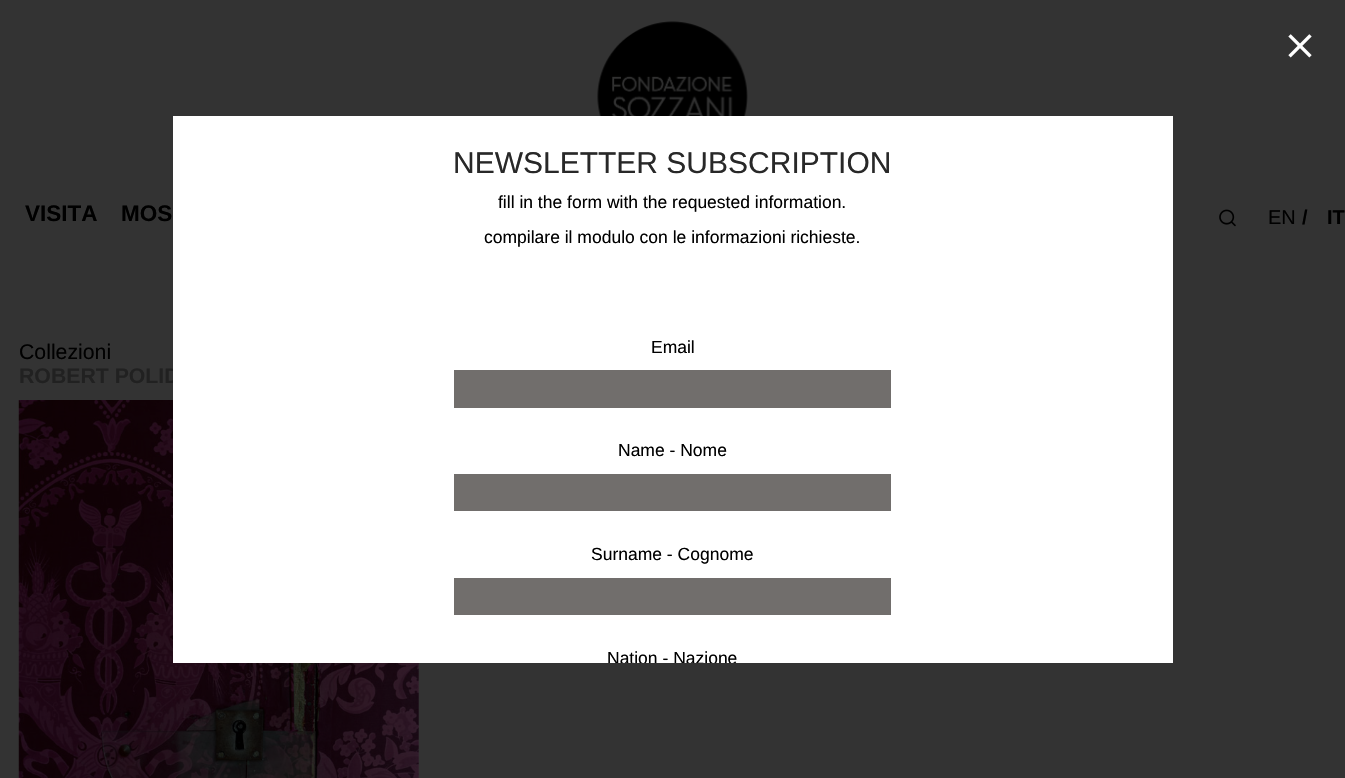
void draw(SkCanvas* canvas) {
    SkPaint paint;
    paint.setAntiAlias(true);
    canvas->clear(0xFF333333);
    canvas->drawImageRect(SkImages::DeferredFromEncodedData(SkData::MakeFromFileName("img1.png")), SkRect::MakeXYWH(1288, 34, 24, 24), SkSamplingOptions());
    SkFont font1(fontMgr->matchFamilyStyle("Liberation Sans", SkFontStyle::Bold()), 21.25f);
    font1.setSubpixel(true);
    paint.setColor(0xFF212121);
    canvas->drawString("ROBERT POLID", 19, 383, font1, paint);
    canvas->drawImageRect(SkImages::DeferredFromEncodedData(SkData::MakeFromFileName("img4.png")), SkRect::MakeXYWH(18, 400, 401, 378), SkSamplingOptions());
    paint.setColor(0xFFFFFFFF);
    canvas->drawRect(SkRect::MakeXYWH(173, 116, 1000, 547), paint);
    SkFont font2(fontMgr->matchFamilyStyle("Liberation Sans", SkFontStyle::Normal()), 30);
    font2.setSubpixel(true);
    paint.setColor(0xFF282828);
    canvas->drawString("NEWSLETTER SUBSCRIPTION", 453, 173, font2, paint);
    SkFont font3(fontMgr->matchFamilyStyle("Liberation Sans", SkFontStyle::Normal()), 17.5f);
    font3.setSubpixel(true);
    paint.setColor(0xFF000000);
    canvas->drawString("fill in the form with the requested information.", 498, 208, font3, paint);
    canvas->drawString("compilare il modulo con le informazioni richieste.", 484, 243, font3, paint);
    canvas->drawString("Email", 651, 353, font3, paint);
    paint.setColor(0xFF716E6C);
    canvas->drawRect(SkRect::MakeXYWH(454, 370, 437, 38), paint);
    paint.setColor(0xFF000000);
    canvas->drawString("Name - Nome", 618, 456, font3, paint);
    paint.setColor(0xFF716E6C);
    canvas->drawRect(SkRect::MakeXYWH(454, 474, 437, 37), paint);
    paint.setColor(0xFF000000);
    canvas->drawString("Surname - Cognome", 591, 560, font3, paint);
    paint.setColor(0xFF716E6C);
    canvas->drawRect(SkRect::MakeXYWH(454, 578, 437, 37), paint);
    canvas->save();
    canvas->clipRect(SkRect::MakeXYWH(0, 116, 1345, 547));
    paint.setColor(0xFF000000);
    canvas->drawString("Nation - Nazione", 607, 664, font3, paint);
    canvas->restore();
    SkFont font4(fontMgr->matchFamilyStyle("Liberation Sans", SkFontStyle::Bold()), 22.5f);
    font4.setSubpixel(true);
    canvas->drawString("VISITA", 25, 221, font4, paint);
    canvas->drawString("MOS", 121, 221, font4, paint);
    canvas->drawImageRect(SkImages::DeferredFromEncodedData(SkData::MakeFromFileName("img2.png")), SkRect::MakeXYWH(1219, 209, 17, 18), SkSamplingOptions());
    SkFont font5(fontMgr->matchFamilyStyle("Liberation Sans", SkFontStyle::Normal()), 20);
    font5.setSubpixel(true);
    canvas->drawString("EN", 1268, 224, font5, paint);
    SkFont font6(fontMgr->matchFamilyStyle("Liberation Sans", SkFontStyle::Bold()), 20);
    font6.setSubpixel(true);
    canvas->drawString("/", 1302, 224, font6, paint);
    canvas->drawString("IT", 1327, 224, font6, paint);
    canvas->drawImageRect(SkImages::DeferredFromEncodedData(SkData::MakeFromFileName("img3.png")), SkRect::MakeXYWH(597, 21, 151, 95), SkSamplingOptions());
    SkFont font7(fontMgr->matchFamilyStyle("Liberation Sans", SkFontStyle::Normal()), 21.25f);
    font7.setSubpixel(true);
    canvas->drawString("Collezioni", 19, 359, font7, paint);
}
